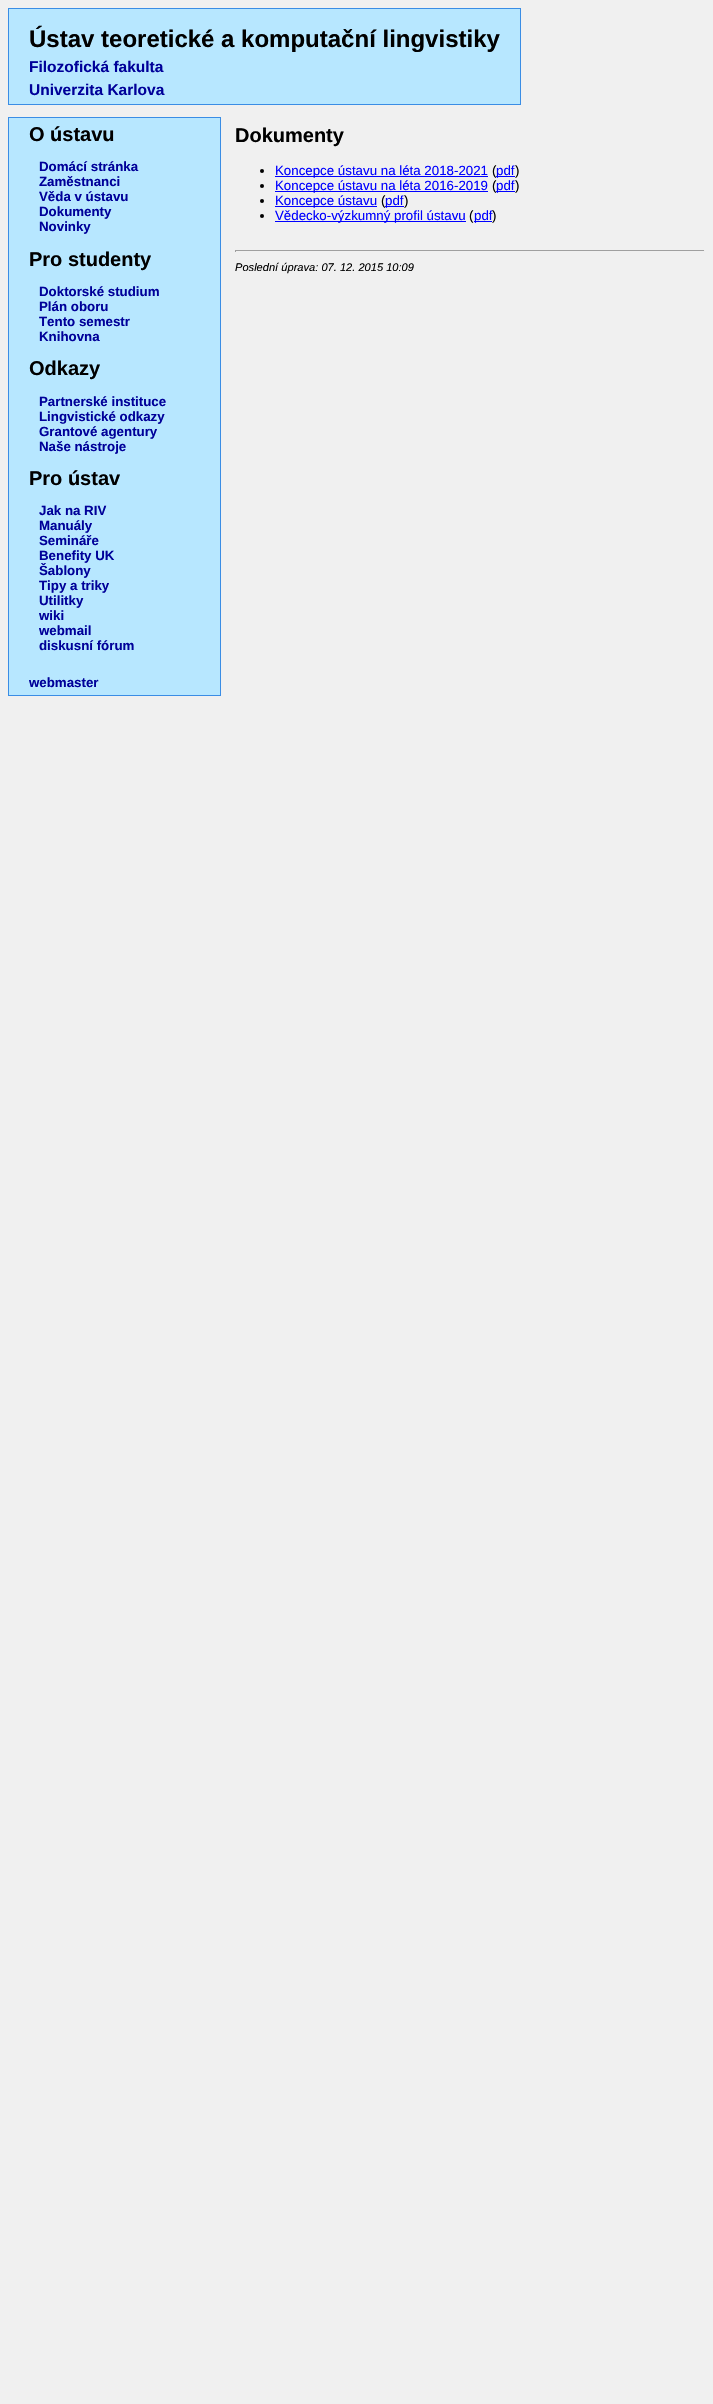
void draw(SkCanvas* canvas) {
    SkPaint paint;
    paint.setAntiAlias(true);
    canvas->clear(0xFFF0F0F0);
    paint.setColor(0xFFB7E7FF);
    canvas->drawRect(SkRect::MakeXYWH(8.5f, 8.5f, 512, 96), paint);
    paint.setStyle(SkPaint::kStroke_Style);
    paint.setStrokeWidth(1);
    paint.setColor(0xFF3A8DE5);
    canvas->drawRect(SkRect::MakeXYWH(8.5f, 8.5f, 512, 96), paint);
    SkFont font1(fontMgr->matchFamilyStyle("Liberation Sans", SkFontStyle::Bold()), 24);
    font1.setSubpixel(true);
    paint.setStyle(SkPaint::kFill_Style);
    paint.setColor(0xFF000000);
    canvas->drawString("Ústav teoretické a komputační lingvistiky", 29, 47, font1, paint);
    SkFont font2(fontMgr->matchFamilyStyle("Liberation Sans", SkFontStyle::Bold()), 15.5f);
    font2.setSubpixel(true);
    paint.setColor(0xFF000099);
    canvas->drawString("Filozofická fakulta", 29, 72, font2, paint);
    canvas->drawString("Univerzita Karlova", 29, 95, font2, paint);
    paint.setColor(0xFFB7E7FF);
    canvas->drawRect(SkRect::MakeXYWH(8.5f, 117.5f, 212, 578), paint);
    paint.setStyle(SkPaint::kStroke_Style);
    paint.setColor(0xFF3A8DE5);
    canvas->drawRect(SkRect::MakeXYWH(8.5f, 117.5f, 212, 578), paint);
    SkFont font3(fontMgr->matchFamilyStyle("Liberation Sans", SkFontStyle::Bold()), 20);
    font3.setSubpixel(true);
    paint.setStyle(SkPaint::kFill_Style);
    paint.setColor(0xFF000000);
    canvas->drawString("O ústavu", 29, 141, font3, paint);
    SkFont font4(fontMgr->matchFamilyStyle("Liberation Sans", SkFontStyle::Bold()), 13.3f);
    font4.setSubpixel(true);
    paint.setColor(0xFF000099);
    canvas->drawString("Domácí stránka", 39, 171, font4, paint);
    canvas->drawString("Zaměstnanci", 39, 186, font4, paint);
    canvas->drawString("Věda v ústavu", 39, 201, font4, paint);
    canvas->drawString("Dokumenty", 39, 216, font4, paint);
    canvas->drawString("Novinky", 39, 231, font4, paint);
    paint.setColor(0xFF000000);
    canvas->drawString("Pro studenty", 29, 266, font3, paint);
    paint.setColor(0xFF000099);
    canvas->drawString("Doktorské studium", 39, 296, font4, paint);
    canvas->drawString("Plán oboru", 39, 311, font4, paint);
    canvas->drawString("Tento semestr", 39, 326, font4, paint);
    canvas->drawString("Knihovna", 39, 341, font4, paint);
    paint.setColor(0xFF000000);
    canvas->drawString("Odkazy", 29, 375, font3, paint);
    paint.setColor(0xFF000099);
    canvas->drawString("Partnerské instituce", 39, 406, font4, paint);
    canvas->drawString("Lingvistické odkazy", 39, 421, font4, paint);
    canvas->drawString("Grantové agentury", 39, 436, font4, paint);
    canvas->drawString("Naše nástroje", 39, 451, font4, paint);
    paint.setColor(0xFF000000);
    canvas->drawString("Pro ústav", 29, 485, font3, paint);
    paint.setColor(0xFF000099);
    canvas->drawString("Jak na RIV", 39, 515, font4, paint);
    canvas->drawString("Manuály", 39, 530, font4, paint);
    canvas->drawString("Semináře", 39, 545, font4, paint);
    canvas->drawString("Benefity UK", 39, 560, font4, paint);
    canvas->drawString("Šablony", 39, 575, font4, paint);
    canvas->drawString("Tipy a triky", 39, 590, font4, paint);
    canvas->drawString("Utilitky", 39, 605, font4, paint);
    canvas->drawString("wiki", 39, 620, font4, paint);
    canvas->drawString("webmail", 39, 635, font4, paint);
    canvas->drawString("diskusní fórum", 39, 650, font4, paint);
    canvas->drawString("webmaster", 29, 687, font4, paint);
    paint.setColor(0xFF000000);
    canvas->drawString("Dokumenty", 235, 142, font3, paint);
    canvas->drawCircle(262, 171, 2, paint);
    paint.setColor(0xFF0000FF);
    canvas->drawRect(SkRect::MakeXYWH(275, 176, 213, 1), paint);
    SkFont font5(fontMgr->matchFamilyStyle("Liberation Sans", SkFontStyle::Normal()), 13.3f);
    font5.setSubpixel(true);
    canvas->drawString("Koncepce ústavu na léta 2018-2021", 275, 175, font5, paint);
    paint.setColor(0xFF000000);
    canvas->drawString("(", 492, 175, font5, paint);
    paint.setColor(0xFF0000FF);
    canvas->drawRect(SkRect::MakeXYWH(496, 176, 19, 1), paint);
    canvas->drawString("pdf", 496, 175, font5, paint);
    paint.setColor(0xFF000000);
    canvas->drawString(")", 515, 175, font5, paint);
    canvas->drawCircle(262, 186, 2, paint);
    paint.setColor(0xFF0000FF);
    canvas->drawRect(SkRect::MakeXYWH(275, 191, 213, 1), paint);
    canvas->drawString("Koncepce ústavu na léta 2016-2019", 275, 190, font5, paint);
    paint.setColor(0xFF000000);
    canvas->drawString("(", 492, 190, font5, paint);
    paint.setColor(0xFF0000FF);
    canvas->drawRect(SkRect::MakeXYWH(496, 191, 19, 1), paint);
    canvas->drawString("pdf", 496, 190, font5, paint);
    paint.setColor(0xFF000000);
    canvas->drawString(")", 515, 190, font5, paint);
    canvas->drawCircle(262, 201, 2, paint);
    paint.setColor(0xFF0000FF);
    canvas->drawRect(SkRect::MakeXYWH(275, 206, 102, 1), paint);
    canvas->drawString("Koncepce ústavu", 275, 205, font5, paint);
    paint.setColor(0xFF000000);
    canvas->drawString("(", 381, 205, font5, paint);
    paint.setColor(0xFF0000FF);
    canvas->drawRect(SkRect::MakeXYWH(385, 206, 19, 1), paint);
    canvas->drawString("pdf", 385, 205, font5, paint);
    paint.setColor(0xFF000000);
    canvas->drawString(")", 404, 205, font5, paint);
    canvas->drawCircle(262, 216, 2, paint);
    paint.setColor(0xFF0000FF);
    canvas->drawRect(SkRect::MakeXYWH(275, 221, 191, 1), paint);
    canvas->drawString("Vědecko-výzkumný profil ústavu", 275, 220, font5, paint);
    paint.setColor(0xFF000000);
    canvas->drawString("(", 469, 220, font5, paint);
    paint.setColor(0xFF0000FF);
    canvas->drawRect(SkRect::MakeXYWH(474, 221, 18, 1), paint);
    canvas->drawString("pdf", 474, 220, font5, paint);
    paint.setColor(0xFF000000);
    canvas->drawString(")", 492, 220, font5, paint);
    paint.setColor(0xFF9F9F9F);
    canvas->drawRect(SkRect::MakeXYWH(235, 250, 470, 1), paint);
    paint.setColor(0xFFEEEEEE);
    canvas->drawRect(SkRect::MakeXYWH(704, 250, 1, 2), paint);
    paint.setColor(0xFF9F9F9F);
    canvas->drawRect(SkRect::MakeXYWH(235, 250, 1, 2), paint);
    SkFont font6(fontMgr->matchFamilyStyle("Liberation Sans", SkFontStyle::Italic()), 11.1f);
    font6.setSubpixel(true);
    paint.setColor(0xFF000000);
    canvas->drawString("Poslední úprava: 07. 12. 2015 10:09", 235, 271, font6, paint);
}
